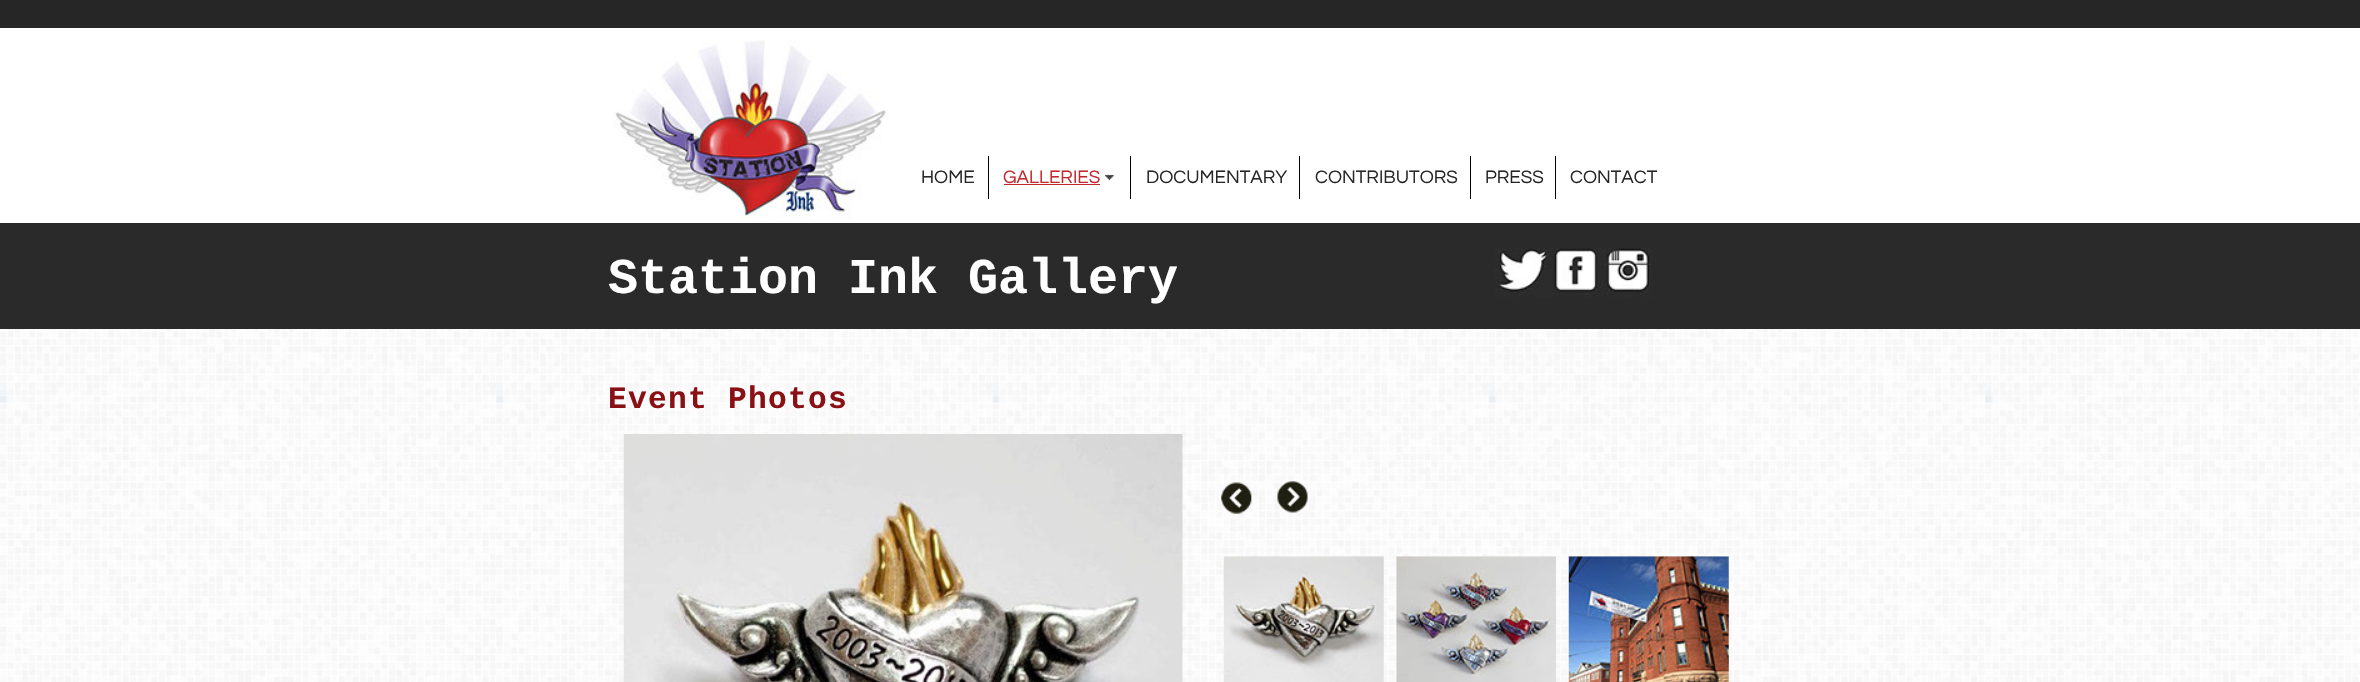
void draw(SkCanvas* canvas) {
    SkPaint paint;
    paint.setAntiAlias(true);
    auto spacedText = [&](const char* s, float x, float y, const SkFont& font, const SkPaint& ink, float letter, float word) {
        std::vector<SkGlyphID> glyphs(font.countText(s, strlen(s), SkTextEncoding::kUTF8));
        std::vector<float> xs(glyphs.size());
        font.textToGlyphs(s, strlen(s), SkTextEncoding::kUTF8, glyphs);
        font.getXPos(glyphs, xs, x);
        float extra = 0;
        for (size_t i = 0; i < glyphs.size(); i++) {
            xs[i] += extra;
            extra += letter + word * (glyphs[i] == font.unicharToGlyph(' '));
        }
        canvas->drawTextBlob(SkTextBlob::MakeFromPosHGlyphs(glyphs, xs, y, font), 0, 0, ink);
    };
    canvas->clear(0xFFFFFFFF);
    canvas->drawImageRect(SkImages::DeferredFromEncodedData(SkData::MakeFromFileName("img1.png")), SkRect::MakeXYWH(0, 329, 2360, 353), SkSamplingOptions());
    paint.setColor(0xFF262626);
    canvas->drawRect(SkRect::MakeXYWH(0, 0, 2360, 28), paint);
    canvas->drawImageRect(SkImages::DeferredFromEncodedData(SkData::MakeFromFileName("img2.png")), SkRect::MakeXYWH(613, 40, 276, 179), SkSamplingOptions());
    paint.setColor(0xFF000000);
    canvas->drawRect(SkRect::MakeXYWH(988, 156, 1, 43), paint);
    SkFont font1(fontMgr->matchFamilyStyle("Questrial", SkFontStyle::Normal()), 18.75f);
    font1.setSubpixel(true);
    paint.setColor(0xFF262626);
    canvas->drawString("HOME", 921, 183, font1, paint);
    paint.setColor(0xFF000000);
    canvas->drawRect(SkRect::MakeXYWH(1130, 156, 1, 43), paint);
    paint.setColor(0xFFC1272D);
    canvas->drawString("GALLERIES", 1003, 183, font1, paint);
    canvas->drawRect(SkRect::MakeXYWH(1004, 184, 96, 1), paint);
    canvas->drawImageRect(SkImages::DeferredFromEncodedData(SkData::MakeFromFileName("img3.png")), SkRect::MakeXYWH(1105, 174, 9, 7), SkSamplingOptions());
    paint.setColor(0xFF000000);
    canvas->drawRect(SkRect::MakeXYWH(1299, 156, 1, 43), paint);
    paint.setColor(0xFF262626);
    canvas->drawString("DOCUMENTARY", 1146, 183, font1, paint);
    paint.setColor(0xFF000000);
    canvas->drawRect(SkRect::MakeXYWH(1470, 156, 1, 43), paint);
    paint.setColor(0xFF262626);
    canvas->drawString("CONTRIBUTORS", 1315, 183, font1, paint);
    paint.setColor(0xFF000000);
    canvas->drawRect(SkRect::MakeXYWH(1555, 156, 1, 43), paint);
    paint.setColor(0xFF262626);
    canvas->drawString("PRESS", 1485, 183, font1, paint);
    canvas->drawString("CONTACT", 1570, 183, font1, paint);
    paint.setColor(0xFF2A2A2A);
    canvas->drawRect(SkRect::MakeXYWH(0, 223, 2360, 106), paint);
    SkFont font2(fontMgr->matchFamilyStyle("Liberation Mono", SkFontStyle::Bold()), 50);
    font2.setSubpixel(true);
    paint.setColor(0xFFFFFFFF);
    canvas->drawString("Station Ink Gallery", 608, 293, font2, paint);
    canvas->drawImageRect(SkImages::DeferredFromEncodedData(SkData::MakeFromFileName("img4.png")), SkRect::MakeXYWH(1494, 248, 158, 49), SkSamplingOptions());
    SkFont font3(fontMgr->matchFamilyStyle("Liberation Mono", SkFontStyle::Bold()), 31.25f);
    font3.setSubpixel(true);
    paint.setColor(0xFF891014);
    spacedText("Event Photos", 608, 408, font3, paint, 1.25f, 0);
    canvas->drawImageRect(SkImages::DeferredFromEncodedData(SkData::MakeFromFileName("img5.png")), SkRect::MakeXYWH(623, 434, 560, 248), SkSamplingOptions());
    canvas->drawImageRect(SkImages::DeferredFromEncodedData(SkData::MakeFromFileName("img6.png")), SkRect::MakeXYWH(1221, 482, 31, 32), SkSamplingOptions());
    canvas->drawImageRect(SkImages::DeferredFromEncodedData(SkData::MakeFromFileName("img7.png")), SkRect::MakeXYWH(1277, 481, 31, 32), SkSamplingOptions());
    canvas->drawImageRect(SkImages::DeferredFromEncodedData(SkData::MakeFromFileName("img8.png")), SkRect::MakeXYWH(1223, 556, 161, 126), SkSamplingOptions());
    canvas->drawImageRect(SkImages::DeferredFromEncodedData(SkData::MakeFromFileName("img9.png")), SkRect::MakeXYWH(1396, 556, 160, 126), SkSamplingOptions());
    canvas->drawImageRect(SkImages::DeferredFromEncodedData(SkData::MakeFromFileName("img10.png")), SkRect::MakeXYWH(1568, 556, 161, 126), SkSamplingOptions());
}
